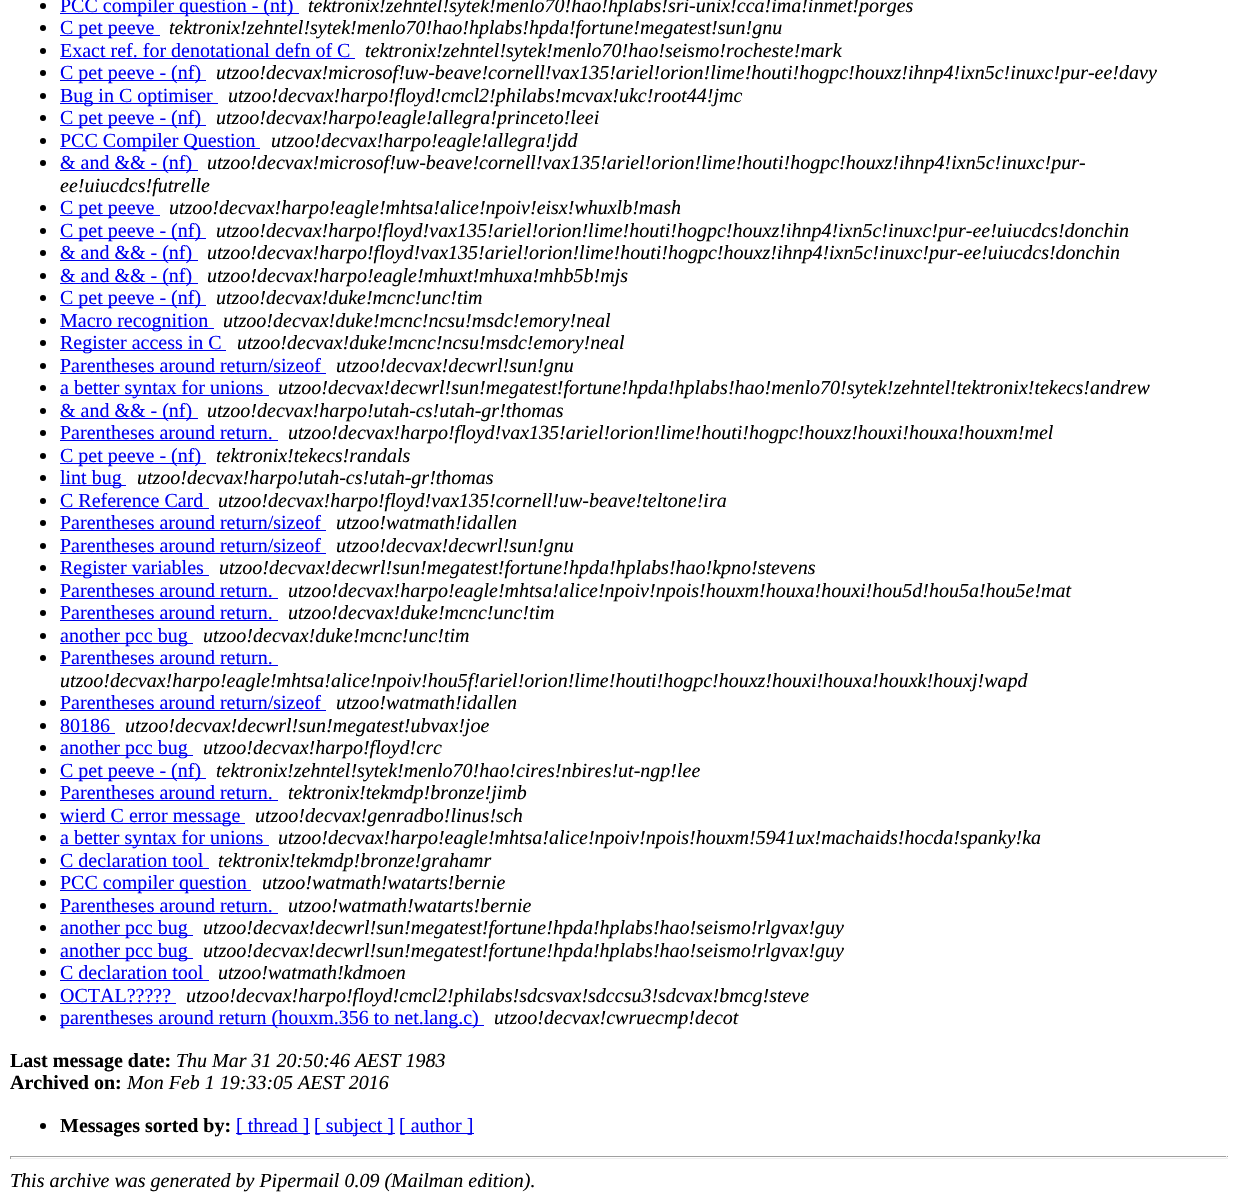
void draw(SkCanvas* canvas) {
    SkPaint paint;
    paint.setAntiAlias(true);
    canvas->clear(0xFFFFFFFF);
    paint.setColor(0xFF000000);
    canvas->drawCircle(43, 6, 3, paint);
    paint.setColor(0xFF0000EE);
    canvas->drawRect(SkRect::MakeXYWH(60, 13, 239, 1), paint);
    SkFont font1(fontMgr->matchFamilyStyle("Liberation Serif", SkFontStyle::Normal()), 20);
    font1.setSubpixel(true);
    canvas->drawString("PCC compiler question - (nf)", 60, 12, font1, paint);
    SkFont font2(fontMgr->matchFamilyStyle("Liberation Serif", SkFontStyle::Italic()), 20);
    font2.setSubpixel(true);
    paint.setColor(0xFF000000);
    canvas->drawString("tektronix!zehntel!sytek!menlo70!hao!hplabs!sri-unix!cca!ima!inmet!porges", 308, 12, font2, paint);
    canvas->drawCircle(43, 28, 3, paint);
    paint.setColor(0xFF0000EE);
    canvas->drawRect(SkRect::MakeXYWH(60, 35, 100, 1), paint);
    canvas->drawString("C pet peeve", 60, 34, font1, paint);
    paint.setColor(0xFF000000);
    canvas->drawString("tektronix!zehntel!sytek!menlo70!hao!hplabs!hpda!fortune!megatest!sun!gnu", 169, 34, font2, paint);
    canvas->drawCircle(43, 51, 3, paint);
    paint.setColor(0xFF0000EE);
    canvas->drawString("Exact ref. for denotational defn of C", 60, 57, font1, paint);
    canvas->drawRect(SkRect::MakeXYWH(60, 58, 295, 1), paint);
    paint.setColor(0xFF000000);
    canvas->drawString("tektronix!zehntel!sytek!menlo70!hao!seismo!rocheste!mark", 365, 57, font2, paint);
    canvas->drawCircle(43, 73, 3, paint);
    paint.setColor(0xFF0000EE);
    canvas->drawRect(SkRect::MakeXYWH(60, 80, 146, 1), paint);
    canvas->drawString("C pet peeve - (nf)", 60, 79, font1, paint);
    paint.setColor(0xFF000000);
    canvas->drawString("utzoo!decvax!microsof!uw-beave!cornell!vax135!ariel!orion!lime!houti!hogpc!houxz!ihnp4!ixn5c!inuxc!pur-ee!davy", 216, 79, font2, paint);
    canvas->drawCircle(43, 96, 3, paint);
    paint.setColor(0xFF0000EE);
    canvas->drawRect(SkRect::MakeXYWH(60, 103, 158, 1), paint);
    canvas->drawString("Bug in C optimiser", 60, 102, font1, paint);
    paint.setColor(0xFF000000);
    canvas->drawString("utzoo!decvax!harpo!floyd!cmcl2!philabs!mcvax!ukc!root44!jmc", 228, 102, font2, paint);
    canvas->drawCircle(43, 118, 3, paint);
    paint.setColor(0xFF0000EE);
    canvas->drawRect(SkRect::MakeXYWH(60, 125, 146, 1), paint);
    canvas->drawString("C pet peeve - (nf)", 60, 124, font1, paint);
    paint.setColor(0xFF000000);
    canvas->drawString("utzoo!decvax!harpo!eagle!allegra!princeto!leei", 216, 124, font2, paint);
    canvas->drawCircle(43, 141, 3, paint);
    paint.setColor(0xFF0000EE);
    canvas->drawRect(SkRect::MakeXYWH(60, 148, 200, 1), paint);
    canvas->drawString("PCC Compiler Question", 60, 147, font1, paint);
    paint.setColor(0xFF000000);
    canvas->drawString("utzoo!decvax!harpo!eagle!allegra!jdd", 271, 147, font2, paint);
    canvas->drawCircle(43, 163, 3, paint);
    paint.setColor(0xFF0000EE);
    canvas->drawRect(SkRect::MakeXYWH(60, 170, 138, 1), paint);
    canvas->drawString("& and && - (nf)", 60, 169, font1, paint);
    paint.setColor(0xFF000000);
    canvas->drawString("utzoo!decvax!microsof!uw-beave!cornell!vax135!ariel!orion!lime!houti!hogpc!houxz!ihnp4!ixn5c!inuxc!pur-", 207, 169, font2, paint);
    canvas->drawString("ee!uiucdcs!futrelle", 60, 192, font2, paint);
    canvas->drawCircle(43, 208, 3, paint);
    paint.setColor(0xFF0000EE);
    canvas->drawRect(SkRect::MakeXYWH(60, 215, 100, 1), paint);
    canvas->drawString("C pet peeve", 60, 214, font1, paint);
    paint.setColor(0xFF000000);
    canvas->drawString("utzoo!decvax!harpo!eagle!mhtsa!alice!npoiv!eisx!whuxlb!mash", 169, 214, font2, paint);
    canvas->drawCircle(43, 231, 3, paint);
    paint.setColor(0xFF0000EE);
    canvas->drawRect(SkRect::MakeXYWH(60, 238, 146, 1), paint);
    canvas->drawString("C pet peeve - (nf)", 60, 237, font1, paint);
    paint.setColor(0xFF000000);
    canvas->drawString("utzoo!decvax!harpo!floyd!vax135!ariel!orion!lime!houti!hogpc!houxz!ihnp4!ixn5c!inuxc!pur-ee!uiucdcs!donchin", 216, 237, font2, paint);
    canvas->drawCircle(43, 253, 3, paint);
    paint.setColor(0xFF0000EE);
    canvas->drawRect(SkRect::MakeXYWH(60, 260, 138, 1), paint);
    canvas->drawString("& and && - (nf)", 60, 259, font1, paint);
    paint.setColor(0xFF000000);
    canvas->drawString("utzoo!decvax!harpo!floyd!vax135!ariel!orion!lime!houti!hogpc!houxz!ihnp4!ixn5c!inuxc!pur-ee!uiucdcs!donchin", 207, 259, font2, paint);
    canvas->drawCircle(43, 276, 3, paint);
    paint.setColor(0xFF0000EE);
    canvas->drawRect(SkRect::MakeXYWH(60, 283, 138, 1), paint);
    canvas->drawString("& and && - (nf)", 60, 282, font1, paint);
    paint.setColor(0xFF000000);
    canvas->drawString("utzoo!decvax!harpo!eagle!mhuxt!mhuxa!mhb5b!mjs", 207, 282, font2, paint);
    canvas->drawCircle(43, 298, 3, paint);
    paint.setColor(0xFF0000EE);
    canvas->drawRect(SkRect::MakeXYWH(60, 305, 146, 1), paint);
    canvas->drawString("C pet peeve - (nf)", 60, 304, font1, paint);
    paint.setColor(0xFF000000);
    canvas->drawString("utzoo!decvax!duke!mcnc!unc!tim", 216, 304, font2, paint);
    canvas->drawCircle(43, 321, 3, paint);
    paint.setColor(0xFF0000EE);
    canvas->drawRect(SkRect::MakeXYWH(60, 328, 154, 1), paint);
    canvas->drawString("Macro recognition", 60, 327, font1, paint);
    paint.setColor(0xFF000000);
    canvas->drawString("utzoo!decvax!duke!mcnc!ncsu!msdc!emory!neal", 223, 327, font2, paint);
    canvas->drawCircle(43, 343, 3, paint);
    paint.setColor(0xFF0000EE);
    canvas->drawRect(SkRect::MakeXYWH(60, 350, 166, 1), paint);
    canvas->drawString("Register access in C", 60, 349, font1, paint);
    paint.setColor(0xFF000000);
    canvas->drawString("utzoo!decvax!duke!mcnc!ncsu!msdc!emory!neal", 237, 349, font2, paint);
    canvas->drawCircle(43, 366, 3, paint);
    paint.setColor(0xFF0000EE);
    canvas->drawString("Parentheses around return/sizeof", 60, 372, font1, paint);
    canvas->drawRect(SkRect::MakeXYWH(60, 373, 266, 1), paint);
    paint.setColor(0xFF000000);
    canvas->drawString("utzoo!decvax!decwrl!sun!gnu", 336, 372, font2, paint);
    canvas->drawCircle(43, 388, 3, paint);
    paint.setColor(0xFF0000EE);
    canvas->drawRect(SkRect::MakeXYWH(60, 395, 209, 1), paint);
    canvas->drawString("a better syntax for unions", 60, 394, font1, paint);
    paint.setColor(0xFF000000);
    canvas->drawString("utzoo!decvax!decwrl!sun!megatest!fortune!hpda!hplabs!hao!menlo70!sytek!zehntel!tektronix!tekecs!andrew", 278, 394, font2, paint);
    canvas->drawCircle(43, 411, 3, paint);
    paint.setColor(0xFF0000EE);
    canvas->drawRect(SkRect::MakeXYWH(60, 418, 138, 1), paint);
    canvas->drawString("& and && - (nf)", 60, 417, font1, paint);
    paint.setColor(0xFF000000);
    canvas->drawString("utzoo!decvax!harpo!utah-cs!utah-gr!thomas", 207, 417, font2, paint);
    canvas->drawCircle(43, 433, 3, paint);
    paint.setColor(0xFF0000EE);
    canvas->drawString("Parentheses around return.", 60, 439, font1, paint);
    canvas->drawRect(SkRect::MakeXYWH(60, 440, 218, 1), paint);
    paint.setColor(0xFF000000);
    canvas->drawString("utzoo!decvax!harpo!floyd!vax135!ariel!orion!lime!houti!hogpc!houxz!houxi!houxa!houxm!mel", 288, 439, font2, paint);
    canvas->drawCircle(43, 456, 3, paint);
    paint.setColor(0xFF0000EE);
    canvas->drawRect(SkRect::MakeXYWH(60, 463, 146, 1), paint);
    canvas->drawString("C pet peeve - (nf)", 60, 462, font1, paint);
    paint.setColor(0xFF000000);
    canvas->drawString("tektronix!tekecs!randals", 216, 462, font2, paint);
    canvas->drawCircle(43, 478, 3, paint);
    paint.setColor(0xFF0000EE);
    canvas->drawRect(SkRect::MakeXYWH(60, 485, 66, 1), paint);
    canvas->drawString("lint bug", 60, 484, font1, paint);
    paint.setColor(0xFF000000);
    canvas->drawString("utzoo!decvax!harpo!utah-cs!utah-gr!thomas", 137, 484, font2, paint);
    canvas->drawCircle(43, 501, 3, paint);
    paint.setColor(0xFF0000EE);
    canvas->drawString("C Reference Card", 60, 507, font1, paint);
    canvas->drawRect(SkRect::MakeXYWH(60, 508, 149, 1), paint);
    paint.setColor(0xFF000000);
    canvas->drawString("utzoo!decvax!harpo!floyd!vax135!cornell!uw-beave!teltone!ira", 218, 507, font2, paint);
    canvas->drawCircle(43, 523, 3, paint);
    paint.setColor(0xFF0000EE);
    canvas->drawString("Parentheses around return/sizeof", 60, 529, font1, paint);
    canvas->drawRect(SkRect::MakeXYWH(60, 530, 266, 1), paint);
    paint.setColor(0xFF000000);
    canvas->drawString("utzoo!watmath!idallen", 336, 529, font2, paint);
    canvas->drawCircle(43, 546, 3, paint);
    paint.setColor(0xFF0000EE);
    canvas->drawString("Parentheses around return/sizeof", 60, 552, font1, paint);
    canvas->drawRect(SkRect::MakeXYWH(60, 553, 266, 1), paint);
    paint.setColor(0xFF000000);
    canvas->drawString("utzoo!decvax!decwrl!sun!gnu", 336, 552, font2, paint);
    canvas->drawCircle(43, 568, 3, paint);
    paint.setColor(0xFF0000EE);
    canvas->drawRect(SkRect::MakeXYWH(60, 575, 149, 1), paint);
    canvas->drawString("Register variables", 60, 574, font1, paint);
    paint.setColor(0xFF000000);
    canvas->drawString("utzoo!decvax!decwrl!sun!megatest!fortune!hpda!hplabs!hao!kpno!stevens", 219, 574, font2, paint);
    canvas->drawCircle(43, 591, 3, paint);
    paint.setColor(0xFF0000EE);
    canvas->drawString("Parentheses around return.", 60, 597, font1, paint);
    canvas->drawRect(SkRect::MakeXYWH(60, 598, 218, 1), paint);
    paint.setColor(0xFF000000);
    canvas->drawString("utzoo!decvax!harpo!eagle!mhtsa!alice!npoiv!npois!houxm!houxa!houxi!hou5d!hou5a!hou5e!mat", 288, 597, font2, paint);
    canvas->drawCircle(43, 613, 3, paint);
    paint.setColor(0xFF0000EE);
    canvas->drawString("Parentheses around return.", 60, 619, font1, paint);
    canvas->drawRect(SkRect::MakeXYWH(60, 620, 218, 1), paint);
    paint.setColor(0xFF000000);
    canvas->drawString("utzoo!decvax!duke!mcnc!unc!tim", 288, 619, font2, paint);
    canvas->drawCircle(43, 636, 3, paint);
    paint.setColor(0xFF0000EE);
    canvas->drawRect(SkRect::MakeXYWH(60, 643, 133, 1), paint);
    canvas->drawString("another pcc bug", 60, 642, font1, paint);
    paint.setColor(0xFF000000);
    canvas->drawString("utzoo!decvax!duke!mcnc!unc!tim", 203, 642, font2, paint);
    canvas->drawCircle(43, 658, 3, paint);
    paint.setColor(0xFF0000EE);
    canvas->drawString("Parentheses around return.", 60, 664, font1, paint);
    canvas->drawRect(SkRect::MakeXYWH(60, 665, 218, 1), paint);
    paint.setColor(0xFF000000);
    canvas->drawString("utzoo!decvax!harpo!eagle!mhtsa!alice!npoiv!hou5f!ariel!orion!lime!houti!hogpc!houxz!houxi!houxa!houxk!houxj!wapd", 60, 687, font2, paint);
    canvas->drawCircle(43, 703, 3, paint);
    paint.setColor(0xFF0000EE);
    canvas->drawString("Parentheses around return/sizeof", 60, 709, font1, paint);
    canvas->drawRect(SkRect::MakeXYWH(60, 710, 266, 1), paint);
    paint.setColor(0xFF000000);
    canvas->drawString("utzoo!watmath!idallen", 336, 709, font2, paint);
    canvas->drawCircle(43, 726, 3, paint);
    paint.setColor(0xFF0000EE);
    canvas->drawString("80186", 60, 732, font1, paint);
    canvas->drawRect(SkRect::MakeXYWH(60, 733, 55, 1), paint);
    paint.setColor(0xFF000000);
    canvas->drawString("utzoo!decvax!decwrl!sun!megatest!ubvax!joe", 125, 732, font2, paint);
    canvas->drawCircle(43, 748, 3, paint);
    paint.setColor(0xFF0000EE);
    canvas->drawRect(SkRect::MakeXYWH(60, 755, 133, 1), paint);
    canvas->drawString("another pcc bug", 60, 754, font1, paint);
    paint.setColor(0xFF000000);
    canvas->drawString("utzoo!decvax!harpo!floyd!crc", 203, 754, font2, paint);
    canvas->drawCircle(43, 771, 3, paint);
    paint.setColor(0xFF0000EE);
    canvas->drawRect(SkRect::MakeXYWH(60, 778, 146, 1), paint);
    canvas->drawString("C pet peeve - (nf)", 60, 777, font1, paint);
    paint.setColor(0xFF000000);
    canvas->drawString("tektronix!zehntel!sytek!menlo70!hao!cires!nbires!ut-ngp!lee", 216, 777, font2, paint);
    canvas->drawCircle(43, 793, 3, paint);
    paint.setColor(0xFF0000EE);
    canvas->drawString("Parentheses around return.", 60, 799, font1, paint);
    canvas->drawRect(SkRect::MakeXYWH(60, 800, 218, 1), paint);
    paint.setColor(0xFF000000);
    canvas->drawString("tektronix!tekmdp!bronze!jimb", 288, 799, font2, paint);
    canvas->drawCircle(43, 816, 3, paint);
    paint.setColor(0xFF0000EE);
    canvas->drawRect(SkRect::MakeXYWH(60, 823, 185, 1), paint);
    canvas->drawString("wierd C error message", 60, 822, font1, paint);
    paint.setColor(0xFF000000);
    canvas->drawString("utzoo!decvax!genradbo!linus!sch", 255, 822, font2, paint);
    canvas->drawCircle(43, 838, 3, paint);
    paint.setColor(0xFF0000EE);
    canvas->drawRect(SkRect::MakeXYWH(60, 845, 209, 1), paint);
    canvas->drawString("a better syntax for unions", 60, 844, font1, paint);
    paint.setColor(0xFF000000);
    canvas->drawString("utzoo!decvax!harpo!eagle!mhtsa!alice!npoiv!npois!houxm!5941ux!machaids!hocda!spanky!ka", 278, 844, font2, paint);
    canvas->drawCircle(43, 861, 3, paint);
    paint.setColor(0xFF0000EE);
    canvas->drawString("C declaration tool", 60, 867, font1, paint);
    canvas->drawRect(SkRect::MakeXYWH(60, 868, 149, 1), paint);
    paint.setColor(0xFF000000);
    canvas->drawString("tektronix!tekmdp!bronze!grahamr", 218, 867, font2, paint);
    canvas->drawCircle(43, 883, 3, paint);
    paint.setColor(0xFF0000EE);
    canvas->drawRect(SkRect::MakeXYWH(60, 890, 191, 1), paint);
    canvas->drawString("PCC compiler question", 60, 889, font1, paint);
    paint.setColor(0xFF000000);
    canvas->drawString("utzoo!watmath!watarts!bernie", 262, 889, font2, paint);
    canvas->drawCircle(43, 906, 3, paint);
    paint.setColor(0xFF0000EE);
    canvas->drawString("Parentheses around return.", 60, 912, font1, paint);
    canvas->drawRect(SkRect::MakeXYWH(60, 913, 218, 1), paint);
    paint.setColor(0xFF000000);
    canvas->drawString("utzoo!watmath!watarts!bernie", 288, 912, font2, paint);
    canvas->drawCircle(43, 928, 3, paint);
    paint.setColor(0xFF0000EE);
    canvas->drawRect(SkRect::MakeXYWH(60, 935, 133, 1), paint);
    canvas->drawString("another pcc bug", 60, 934, font1, paint);
    paint.setColor(0xFF000000);
    canvas->drawString("utzoo!decvax!decwrl!sun!megatest!fortune!hpda!hplabs!hao!seismo!rlgvax!guy", 203, 934, font2, paint);
    canvas->drawCircle(43, 951, 3, paint);
    paint.setColor(0xFF0000EE);
    canvas->drawRect(SkRect::MakeXYWH(60, 958, 133, 1), paint);
    canvas->drawString("another pcc bug", 60, 957, font1, paint);
    paint.setColor(0xFF000000);
    canvas->drawString("utzoo!decvax!decwrl!sun!megatest!fortune!hpda!hplabs!hao!seismo!rlgvax!guy", 203, 957, font2, paint);
    canvas->drawCircle(43, 973, 3, paint);
    paint.setColor(0xFF0000EE);
    canvas->drawString("C declaration tool", 60, 979, font1, paint);
    canvas->drawRect(SkRect::MakeXYWH(60, 980, 149, 1), paint);
    paint.setColor(0xFF000000);
    canvas->drawString("utzoo!watmath!kdmoen", 218, 979, font2, paint);
    canvas->drawCircle(43, 996, 3, paint);
    paint.setColor(0xFF0000EE);
    canvas->drawString("OCTAL?\077?\077?", 60, 1002, font1, paint);
    canvas->drawRect(SkRect::MakeXYWH(60, 1003, 116, 1), paint);
    paint.setColor(0xFF000000);
    canvas->drawString("utzoo!decvax!harpo!floyd!cmcl2!philabs!sdcsvax!sdccsu3!sdcvax!bmcg!steve", 186, 1002, font2, paint);
    canvas->drawCircle(43, 1018, 3, paint);
    paint.setColor(0xFF0000EE);
    canvas->drawRect(SkRect::MakeXYWH(60, 1025, 424, 1), paint);
    canvas->drawString("parentheses around return (houxm.356 to net.lang.c)", 60, 1024, font1, paint);
    paint.setColor(0xFF000000);
    canvas->drawString("utzoo!decvax!cwruecmp!decot", 494, 1024, font2, paint);
    SkFont font3(fontMgr->matchFamilyStyle("Liberation Serif", SkFontStyle::Bold()), 20);
    font3.setSubpixel(true);
    canvas->drawString("Last message date:", 10, 1067, font3, paint);
    canvas->drawString("Thu Mar 31 20:50:46 AEST 1983", 176, 1067, font2, paint);
    canvas->drawString("Archived on:", 10, 1089, font3, paint);
    canvas->drawString("Mon Feb 1 19:33:05 AEST 2016", 127, 1089, font2, paint);
    canvas->drawCircle(43, 1126, 3, paint);
    canvas->drawString("Messages sorted by:", 60, 1132, font3, paint);
    paint.setColor(0xFF0000EE);
    canvas->drawRect(SkRect::MakeXYWH(236, 1133, 74, 1), paint);
    canvas->drawString("[ thread ]", 236, 1132, font1, paint);
    canvas->drawRect(SkRect::MakeXYWH(315, 1133, 80, 1), paint);
    canvas->drawString("[ subject ]", 314, 1132, font1, paint);
    canvas->drawRect(SkRect::MakeXYWH(400, 1133, 74, 1), paint);
    canvas->drawString("[ author ]", 399, 1132, font1, paint);
    paint.setColor(0xFF9F9F9F);
    canvas->drawRect(SkRect::MakeXYWH(10, 1156, 1218, 1), paint);
    paint.setColor(0xFFEEEEEE);
    canvas->drawRect(SkRect::MakeXYWH(1226, 1156, 1, 3), paint);
    canvas->drawRect(SkRect::MakeXYWH(10, 1158, 1218, 1), paint);
    paint.setColor(0xFF9F9F9F);
    canvas->drawRect(SkRect::MakeXYWH(10, 1156, 1, 3), paint);
    paint.setColor(0xFF000000);
    canvas->drawString("This archive was generated by Pipermail 0.09 (Mailman edition).", 10, 1187, font2, paint);
}
